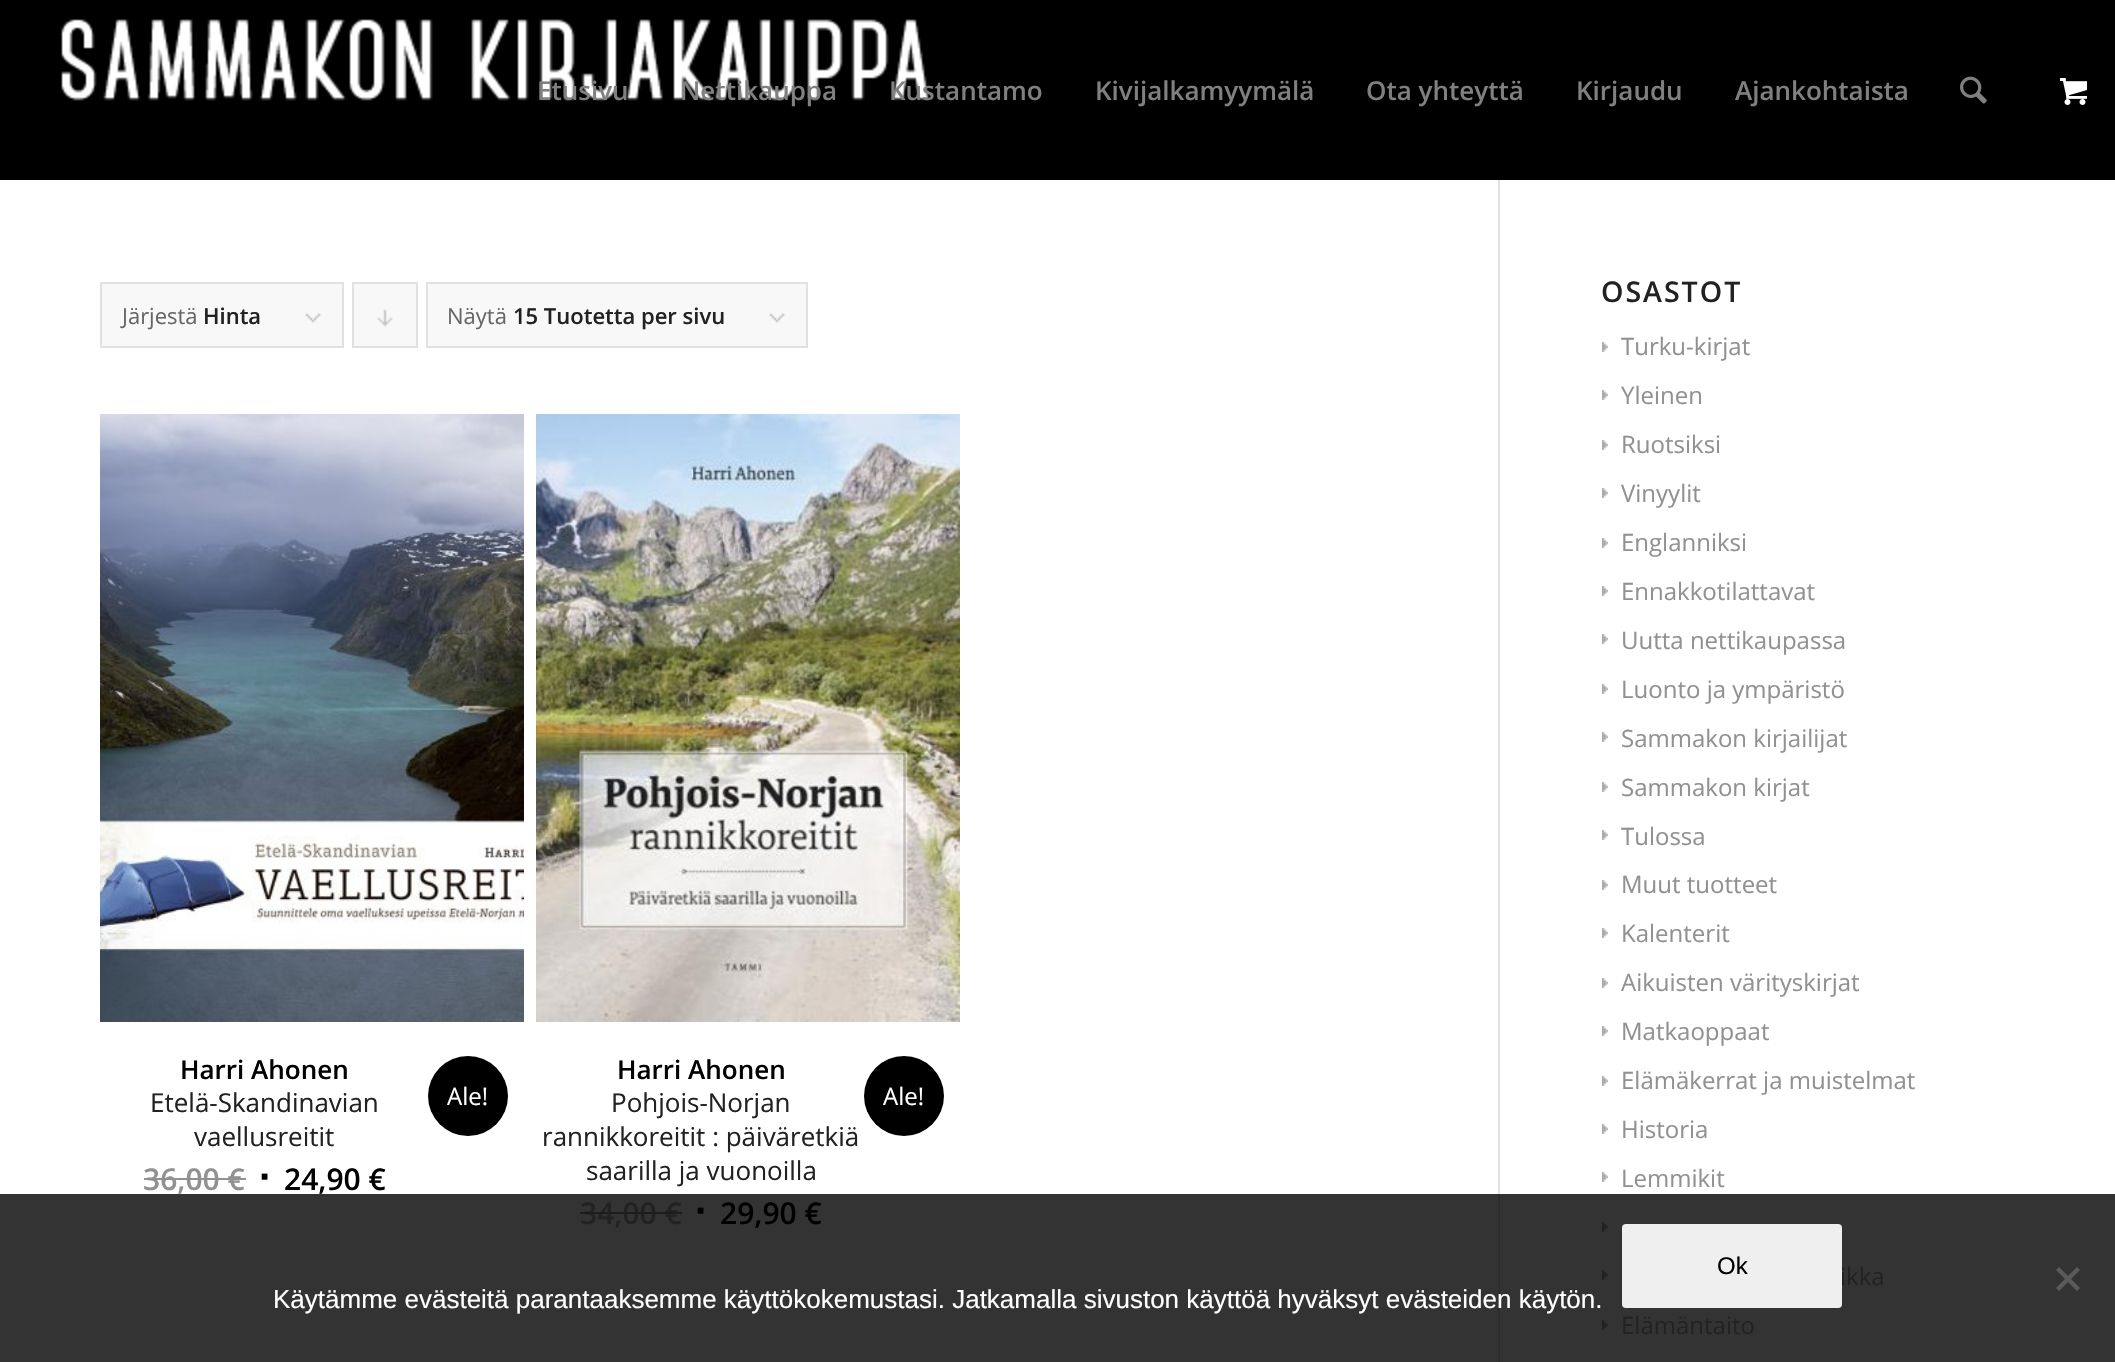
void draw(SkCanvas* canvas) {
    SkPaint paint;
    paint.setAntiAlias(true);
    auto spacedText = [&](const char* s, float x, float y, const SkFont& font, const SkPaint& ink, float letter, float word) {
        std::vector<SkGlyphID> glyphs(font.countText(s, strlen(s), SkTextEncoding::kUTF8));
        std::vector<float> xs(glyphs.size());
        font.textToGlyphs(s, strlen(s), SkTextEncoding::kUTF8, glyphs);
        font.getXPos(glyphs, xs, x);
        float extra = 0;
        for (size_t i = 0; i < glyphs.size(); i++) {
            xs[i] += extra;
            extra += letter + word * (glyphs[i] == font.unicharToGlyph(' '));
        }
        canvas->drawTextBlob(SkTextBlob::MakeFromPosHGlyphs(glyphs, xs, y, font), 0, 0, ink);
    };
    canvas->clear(0xFFFFFFFF);
    paint.setColor(0xFFE1E1E1);
    canvas->drawRect(SkRect::MakeXYWH(1498, 176, 2, 1018), paint);
    paint.setColor(0xFF000000);
    canvas->drawRect(SkRect::MakeXYWH(0, 0, 2115, 180), paint);
    canvas->drawImageRect(SkImages::DeferredFromEncodedData(SkData::MakeFromFileName("img1.png")), SkRect::MakeXYWH(61, 19, 868, 82), SkSamplingOptions());
    SkFont font1(fontMgr->matchFamilyStyle("Open Sans", SkFontStyle(600, SkFontStyle::kNormal_Width, SkFontStyle::kUpright_Slant)), 26);
    font1.setSubpixel(true);
    paint.setColor(0xFF808080);
    canvas->drawString("Etusivu", 537, 100, font1, paint);
    canvas->drawString("Nettikauppa", 680, 100, font1, paint);
    canvas->drawString("Kustantamo", 889, 100, font1, paint);
    canvas->drawString("Kivijalkamyymälä", 1095, 100, font1, paint);
    canvas->drawString("Ota yhteyttä", 1366, 100, font1, paint);
    canvas->drawString("Kirjaudu", 1576, 100, font1, paint);
    canvas->drawString("Ajankohtaista", 1735, 100, font1, paint);
    canvas->drawImageRect(SkImages::DeferredFromEncodedData(SkData::MakeFromFileName("img2.png")), SkRect::MakeXYWH(1960, 76, 27, 28), SkSamplingOptions());
    canvas->drawImageRect(SkImages::DeferredFromEncodedData(SkData::MakeFromFileName("img3.png")), SkRect::MakeXYWH(2060, 78, 27, 27), SkSamplingOptions());
    paint.setColor(0xFF333333);
    canvas->drawRect(SkRect::MakeXYWH(0, 1194, 2115, 168), paint);
    paint.setColor(0xFF2D2D2D);
    canvas->drawRect(SkRect::MakeXYWH(1498, 1194, 2, 168), paint);
    paint.setColor(0xFFF8F8F8);
    canvas->drawRect(SkRect::MakeXYWH(102, 284, 240, 62), paint);
    canvas->drawImageRect(SkImages::DeferredFromEncodedData(SkData::MakeFromFileName("img4.png")), SkRect::MakeXYWH(305, 313, 16, 10), SkSamplingOptions());
    paint.setStyle(SkPaint::kStroke_Style);
    paint.setStrokeWidth(2);
    paint.setColor(0xFFE1E1E1);
    canvas->drawRect(SkRect::MakeXYWH(101, 283, 242, 64), paint);
    SkFont font2(fontMgr->matchFamilyStyle("Open Sans", SkFontStyle::Normal()), 22);
    font2.setSubpixel(true);
    paint.setStyle(SkPaint::kFill_Style);
    paint.setColor(0xFF666666);
    canvas->drawString("Järjestä", 122, 324, font2, paint);
    SkFont font3(fontMgr->matchFamilyStyle("Open Sans", SkFontStyle(600, SkFontStyle::kNormal_Width, SkFontStyle::kUpright_Slant)), 22);
    font3.setSubpixel(true);
    paint.setColor(0xFF222222);
    canvas->drawString("Hinta", 203, 324, font3, paint);
    paint.setColor(0xFFF8F8F8);
    canvas->drawRect(SkRect::MakeXYWH(354, 284, 62, 62), paint);
    canvas->drawImageRect(SkImages::DeferredFromEncodedData(SkData::MakeFromFileName("img5.png")), SkRect::MakeXYWH(377, 309, 16, 18), SkSamplingOptions());
    paint.setStyle(SkPaint::kStroke_Style);
    paint.setColor(0xFFE1E1E1);
    canvas->drawRect(SkRect::MakeXYWH(353, 283, 64, 64), paint);
    paint.setStyle(SkPaint::kFill_Style);
    paint.setColor(0xFFF8F8F8);
    canvas->drawRect(SkRect::MakeXYWH(428, 284, 378, 62), paint);
    canvas->drawImageRect(SkImages::DeferredFromEncodedData(SkData::MakeFromFileName("img4.png")), SkRect::MakeXYWH(769, 313, 16, 10), SkSamplingOptions());
    paint.setStyle(SkPaint::kStroke_Style);
    paint.setColor(0xFFE1E1E1);
    canvas->drawRect(SkRect::MakeXYWH(427, 283, 380, 64), paint);
    paint.setStyle(SkPaint::kFill_Style);
    paint.setColor(0xFF666666);
    canvas->drawString("Näytä", 447, 324, font2, paint);
    paint.setColor(0xFF222222);
    canvas->drawString("15 Tuotetta per sivu", 513, 324, font3, paint);
    canvas->drawImageRect(SkImages::DeferredFromEncodedData(SkData::MakeFromFileName("img6.png")), SkRect::MakeXYWH(100, 414, 424, 608), SkSamplingOptions());
    paint.setColor(0xFF000000);
    canvas->drawString("Harri Ahonen", 180, 1079, font1, paint);
    SkFont font4(fontMgr->matchFamilyStyle("Open Sans", SkFontStyle::Normal()), 26);
    font4.setSubpixel(true);
    paint.setColor(0xFF222222);
    canvas->drawString("Etelä-Skandinavian", 150, 1112, font4, paint);
    canvas->drawString("vaellusreitit", 194, 1146, font4, paint);
    paint.setColor(0xFF000000);
    canvas->drawCircle(468, 1096, 40, paint);
    SkFont font5(fontMgr->matchFamilyStyle("Open Sans", SkFontStyle::Normal()), 24);
    font5.setSubpixel(true);
    paint.setColor(0xFFFFFFFF);
    canvas->drawString("Ale!", 447, 1105, font5, paint);
    SkFont font6(fontMgr->matchFamilyStyle("Open Sans", SkFontStyle(600, SkFontStyle::kNormal_Width, SkFontStyle::kUpright_Slant)), 30);
    font6.setSubpixel(true);
    paint.setColor(0xFF919191);
    canvas->drawString("36,00 €", 143, 1190, font6, paint);
    canvas->drawRect(SkRect::MakeXYWH(144, 1178, 102, 2), paint);
    SkFont font7(fontMgr->matchFamilyStyle("Liberation Sans", SkFontStyle::Bold()), 40);
    font7.setSubpixel(true);
    paint.setColor(0xFF000000);
    canvas->drawString("∙", 259, 1190, font7, paint);
    canvas->drawString("24,90 €", 284, 1190, font6, paint);
    canvas->drawImageRect(SkImages::DeferredFromEncodedData(SkData::MakeFromFileName("img7.png")), SkRect::MakeXYWH(536, 414, 424, 608), SkSamplingOptions());
    canvas->drawString("Harri Ahonen", 617, 1079, font1, paint);
    paint.setColor(0xFF222222);
    canvas->drawString("Pohjois-Norjan", 611, 1112, font4, paint);
    canvas->drawString("rannikkoreitit : päiväretkiä", 542, 1146, font4, paint);
    canvas->drawString("saarilla ja vuonoilla", 586, 1180, font4, paint);
    paint.setColor(0xFF000000);
    canvas->drawCircle(904, 1096, 40, paint);
    paint.setColor(0xFFFFFFFF);
    canvas->drawString("Ale!", 883, 1105, font5, paint);
    paint.setColor(0xFF222222);
    canvas->drawString("34,00 €", 580, 1224, font6, paint);
    paint.setColor(0xFF1D1D1D);
    canvas->drawRect(SkRect::MakeXYWH(580, 1212, 102, 2), paint);
    paint.setColor(0xFF000000);
    canvas->drawString("∙", 695, 1224, font7, paint);
    canvas->drawString("29,90 €", 720, 1224, font6, paint);
    SkFont font8(fontMgr->matchFamilyStyle("Open Sans", SkFontStyle(600, SkFontStyle::kNormal_Width, SkFontStyle::kUpright_Slant)), 28.5f);
    font8.setSubpixel(true);
    paint.setColor(0xFF222222);
    spacedText("OSASTOT", 1601, 302, font8, paint, 2, 0);
    canvas->drawImageRect(SkImages::DeferredFromEncodedData(SkData::MakeFromFileName("img8.png")), SkRect::MakeXYWH(1602, 342, 6, 10), SkSamplingOptions());
    paint.setColor(0xFF919191);
    canvas->drawString("Turku-kirjat", 1621, 355, font5, paint);
    canvas->drawImageRect(SkImages::DeferredFromEncodedData(SkData::MakeFromFileName("img8.png")), SkRect::MakeXYWH(1602, 390, 6, 10), SkSamplingOptions());
    canvas->drawString("Yleinen", 1621, 404, font5, paint);
    canvas->drawImageRect(SkImages::DeferredFromEncodedData(SkData::MakeFromFileName("img8.png")), SkRect::MakeXYWH(1602, 440, 6, 10), SkSamplingOptions());
    canvas->drawString("Ruotsiksi", 1621, 453, font5, paint);
    canvas->drawImageRect(SkImages::DeferredFromEncodedData(SkData::MakeFromFileName("img8.png")), SkRect::MakeXYWH(1602, 488, 6, 10), SkSamplingOptions());
    canvas->drawString("Vinyylit", 1621, 502, font5, paint);
    canvas->drawImageRect(SkImages::DeferredFromEncodedData(SkData::MakeFromFileName("img8.png")), SkRect::MakeXYWH(1602, 538, 6, 10), SkSamplingOptions());
    canvas->drawString("Englanniksi", 1621, 551, font5, paint);
    canvas->drawImageRect(SkImages::DeferredFromEncodedData(SkData::MakeFromFileName("img8.png")), SkRect::MakeXYWH(1602, 586, 6, 10), SkSamplingOptions());
    canvas->drawString("Ennakkotilattavat", 1621, 600, font5, paint);
    canvas->drawImageRect(SkImages::DeferredFromEncodedData(SkData::MakeFromFileName("img8.png")), SkRect::MakeXYWH(1602, 634, 6, 10), SkSamplingOptions());
    canvas->drawString("Uutta nettikaupassa", 1621, 649, font5, paint);
    canvas->drawImageRect(SkImages::DeferredFromEncodedData(SkData::MakeFromFileName("img8.png")), SkRect::MakeXYWH(1602, 684, 6, 10), SkSamplingOptions());
    canvas->drawString("Luonto ja ympäristö", 1621, 698, font5, paint);
    canvas->drawImageRect(SkImages::DeferredFromEncodedData(SkData::MakeFromFileName("img8.png")), SkRect::MakeXYWH(1602, 732, 6, 10), SkSamplingOptions());
    canvas->drawString("Sammakon kirjailijat", 1621, 747, font5, paint);
    canvas->drawImageRect(SkImages::DeferredFromEncodedData(SkData::MakeFromFileName("img8.png")), SkRect::MakeXYWH(1602, 782, 6, 10), SkSamplingOptions());
    canvas->drawString("Sammakon kirjat", 1621, 796, font5, paint);
    canvas->drawImageRect(SkImages::DeferredFromEncodedData(SkData::MakeFromFileName("img8.png")), SkRect::MakeXYWH(1602, 830, 6, 10), SkSamplingOptions());
    canvas->drawString("Tulossa", 1621, 845, font5, paint);
    canvas->drawImageRect(SkImages::DeferredFromEncodedData(SkData::MakeFromFileName("img8.png")), SkRect::MakeXYWH(1602, 880, 6, 10), SkSamplingOptions());
    canvas->drawString("Muut tuotteet", 1621, 893, font5, paint);
    canvas->drawImageRect(SkImages::DeferredFromEncodedData(SkData::MakeFromFileName("img8.png")), SkRect::MakeXYWH(1602, 928, 6, 10), SkSamplingOptions());
    canvas->drawString("Kalenterit", 1621, 942, font5, paint);
    canvas->drawImageRect(SkImages::DeferredFromEncodedData(SkData::MakeFromFileName("img8.png")), SkRect::MakeXYWH(1602, 978, 6, 10), SkSamplingOptions());
    canvas->drawString("Aikuisten värityskirjat", 1621, 991, font5, paint);
    canvas->drawImageRect(SkImages::DeferredFromEncodedData(SkData::MakeFromFileName("img8.png")), SkRect::MakeXYWH(1602, 1026, 6, 10), SkSamplingOptions());
    canvas->drawString("Matkaoppaat", 1621, 1040, font5, paint);
    canvas->drawImageRect(SkImages::DeferredFromEncodedData(SkData::MakeFromFileName("img8.png")), SkRect::MakeXYWH(1602, 1076, 6, 10), SkSamplingOptions());
    canvas->drawString("Elämäkerrat ja muistelmat", 1621, 1089, font5, paint);
    canvas->drawImageRect(SkImages::DeferredFromEncodedData(SkData::MakeFromFileName("img8.png")), SkRect::MakeXYWH(1602, 1124, 6, 10), SkSamplingOptions());
    canvas->drawString("Historia", 1621, 1138, font5, paint);
    canvas->drawImageRect(SkImages::DeferredFromEncodedData(SkData::MakeFromFileName("img8.png")), SkRect::MakeXYWH(1602, 1172, 6, 10), SkSamplingOptions());
    canvas->drawString("Lemmikit", 1621, 1187, font5, paint);
    canvas->drawImageRect(SkImages::DeferredFromEncodedData(SkData::MakeFromFileName("img9.png")), SkRect::MakeXYWH(1602, 1222, 6, 10), SkSamplingOptions());
    canvas->drawImageRect(SkImages::DeferredFromEncodedData(SkData::MakeFromFileName("img9.png")), SkRect::MakeXYWH(1602, 1270, 6, 10), SkSamplingOptions());
    paint.setColor(0xFF222222);
    canvas->drawString("ikka", 1840, 1285, font5, paint);
    canvas->drawImageRect(SkImages::DeferredFromEncodedData(SkData::MakeFromFileName("img9.png")), SkRect::MakeXYWH(1602, 1320, 6, 10), SkSamplingOptions());
    canvas->drawString("Elämäntaito", 1621, 1334, font5, paint);
    paint.setColor(0xFFEFEFEF);
    canvas->drawRoundRect(SkRect::MakeXYWH(1622, 1224, 220, 84), 4, 4, paint);
    SkFont font9(fontMgr->matchFamilyStyle("Liberation Sans", SkFontStyle::Normal()), 24);
    font9.setSubpixel(true);
    paint.setColor(0xFF000000);
    canvas->drawString("Ok", 1717, 1274, font9, paint);
    paint.setColor(0xFF5A5A5A);
    canvas->drawPath(SkPathBuilder().moveTo(2077, 1267).lineTo(2080, 1270).lineTo(2059, 1291).lineTo(2056, 1288).close().detach(), paint);
    canvas->drawPath(SkPathBuilder().moveTo(2056, 1270).lineTo(2059, 1267).lineTo(2080, 1288).lineTo(2077, 1291).close().detach(), paint);
    SkFont font10(fontMgr->matchFamilyStyle("Liberation Sans", SkFontStyle::Normal()), 26);
    font10.setSubpixel(true);
    paint.setColor(0xFFFFFFFF);
    canvas->drawString("Käytämme evästeitä parantaaksemme käyttökokemustasi. Jatkamalla sivuston käyttöä hyväksyt evästeiden käytön.", 273, 1308, font10, paint);
}
